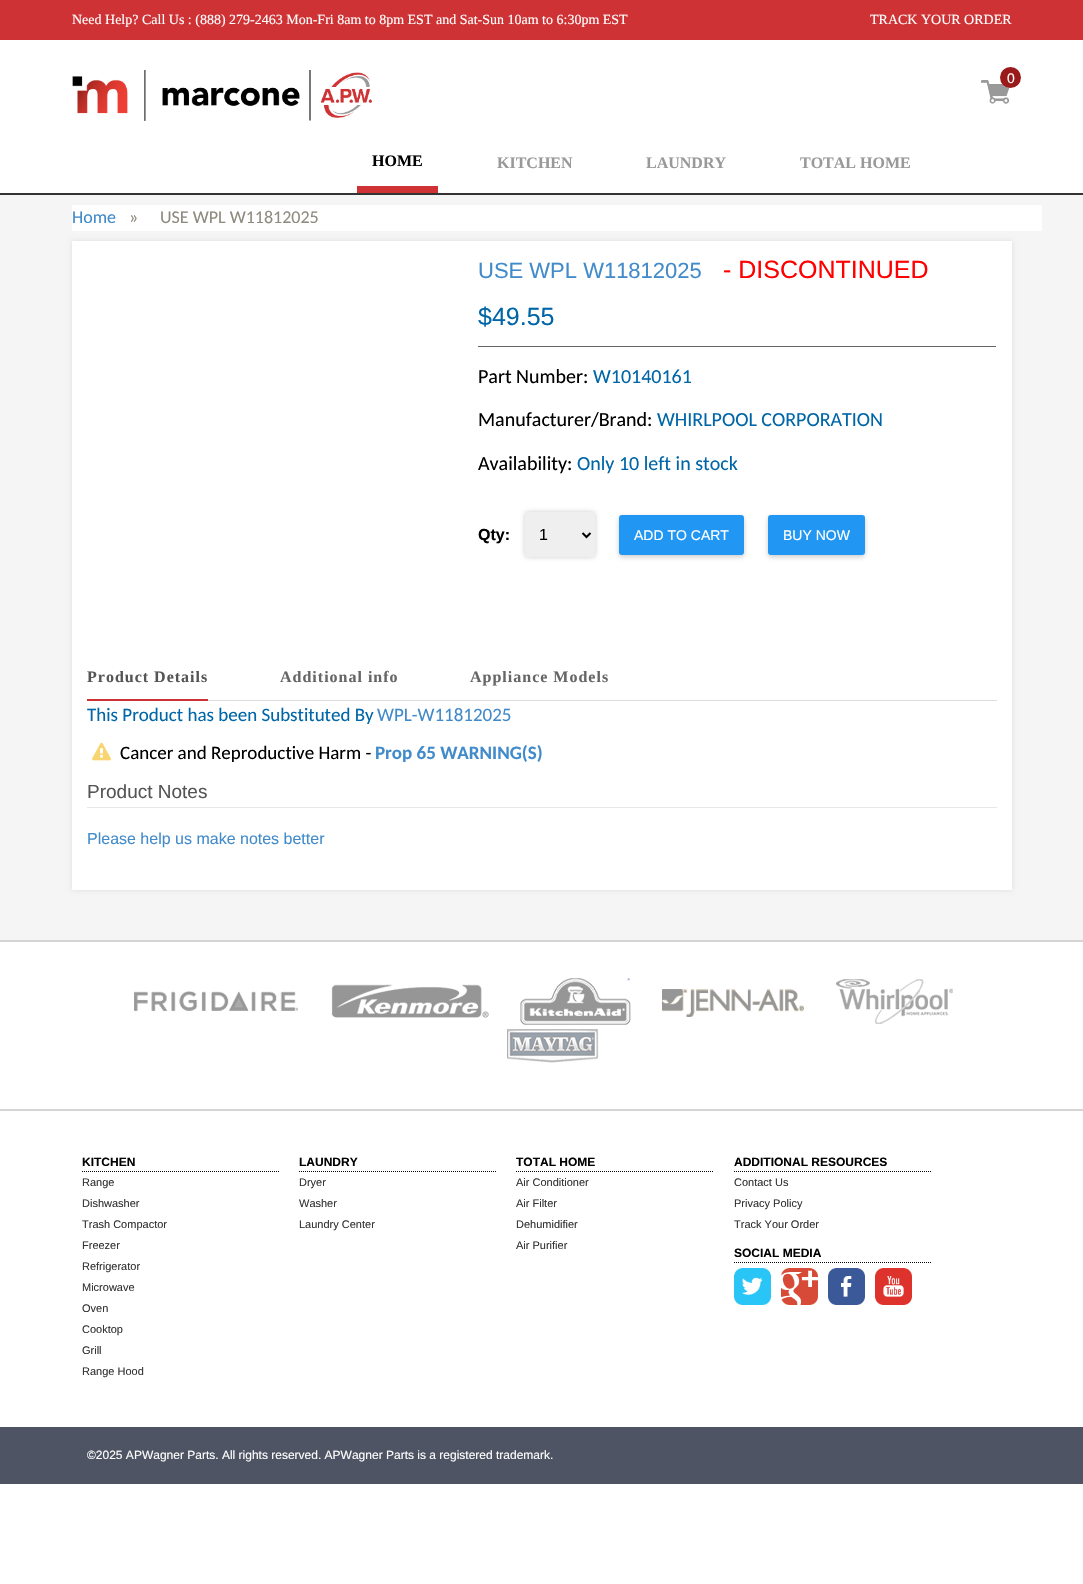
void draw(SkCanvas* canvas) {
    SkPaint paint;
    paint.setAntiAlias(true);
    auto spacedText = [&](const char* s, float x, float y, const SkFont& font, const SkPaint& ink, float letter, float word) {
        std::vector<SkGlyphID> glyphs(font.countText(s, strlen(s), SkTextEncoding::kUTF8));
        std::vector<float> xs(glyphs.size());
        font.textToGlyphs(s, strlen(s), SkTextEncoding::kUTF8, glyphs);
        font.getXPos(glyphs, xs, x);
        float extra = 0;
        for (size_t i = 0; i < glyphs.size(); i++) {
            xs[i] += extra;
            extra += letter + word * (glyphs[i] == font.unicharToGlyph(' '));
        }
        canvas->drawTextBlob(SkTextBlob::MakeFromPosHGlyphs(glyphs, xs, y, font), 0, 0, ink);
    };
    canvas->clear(0xFFFFFFFF);
    paint.setColor(0xFFCE3234);
    canvas->drawRect(SkRect::MakeXYWH(0, 0, 1083, 40), paint);
    SkFont font1(fontMgr->matchFamilyStyle("Liberation Serif", SkFontStyle::Normal()), 14);
    font1.setSubpixel(true);
    paint.setColor(0xFFFFFFFF);
    canvas->drawString("Need Help? Call Us : (888) 279-2463 Mon-Fri 8am to 8pm EST and Sat-Sun 10am to 6:30pm EST", 72, 24, font1, paint);
    canvas->drawString("TRACK YOUR ORDER", 870, 24, font1, paint);
    canvas->drawImageRect(SkImages::DeferredFromEncodedData(SkData::MakeFromFileName("img1.png")), SkRect::MakeXYWH(981, 80, 29, 24), SkSamplingOptions());
    paint.setColor(0xFF9A191A);
    canvas->drawCircle(1010.5f, 77.5f, 10.5f, paint);
    SkFont font2(fontMgr->matchFamilyStyle("Liberation Sans", SkFontStyle::Normal()), 14);
    font2.setSubpixel(true);
    paint.setColor(0xFFFFFFFF);
    canvas->drawString("0", 1007, 83, font2, paint);
    canvas->drawImageRect(SkImages::DeferredFromEncodedData(SkData::MakeFromFileName("img2.png")), SkRect::MakeXYWH(72, 70, 300, 51), SkSamplingOptions());
    paint.setColor(0xFFCE3234);
    canvas->drawRect(SkRect::MakeXYWH(357, 186, 81, 7), paint);
    SkFont font3(fontMgr->matchFamilyStyle("Liberation Serif", SkFontStyle::Bold()), 16);
    font3.setSubpixel(true);
    paint.setColor(0xFF000000);
    canvas->drawString("HOME", 372, 166, font3, paint);
    paint.setColor(0xFF999999);
    canvas->drawString("KITCHEN", 497, 168, font3, paint);
    canvas->drawString("LAUNDRY", 646, 168, font3, paint);
    canvas->drawString("TOTAL HOME", 800, 168, font3, paint);
    paint.setColor(0xFF333333);
    canvas->drawRect(SkRect::MakeXYWH(0, 193, 1083, 2), paint);
    paint.setColor(0xFFF5F5F5);
    canvas->drawRect(SkRect::MakeXYWH(0, 195, 1083, 745), paint);
    paint.setColor(0xFFFFFFFF);
    canvas->drawRect(SkRect::MakeXYWH(72, 205, 970, 26), paint);
    SkFont font4(fontMgr->matchFamilyStyle("Carlito", SkFontStyle::Normal()), 18);
    font4.setSubpixel(true);
    paint.setColor(0xFF428BCA);
    canvas->drawString("Home", 72, 223, font4, paint);
    paint.setColor(0xFF8E8A7E);
    canvas->drawString("»", 129, 223, font4, paint);
    canvas->drawString("USE WPL W11812025", 160, 223, font4, paint);
    paint.setColor(0xFFDDDDDD);
    paint.setMaskFilter(SkMaskFilter::MakeBlur(kNormal_SkBlurStyle, 2.5f));
    canvas->drawRect(SkRect::MakeXYWH(72, 241, 940, 649), paint);
    paint.setMaskFilter(nullptr);
    paint.setColor(0xFFFFFFFF);
    canvas->drawRect(SkRect::MakeXYWH(72, 241, 940, 649), paint);
    SkFont font5(fontMgr->matchFamilyStyle("Liberation Sans", SkFontStyle::Normal()), 22);
    font5.setSubpixel(true);
    paint.setColor(0xFF428BCA);
    canvas->drawString("USE WPL W11812025", 478, 278, font5, paint);
    SkFont font6(fontMgr->matchFamilyStyle("Liberation Sans", SkFontStyle::Normal()), 25);
    font6.setSubpixel(true);
    paint.setColor(0xFFFF0000);
    canvas->drawString("- DISCONTINUED", 723, 278, font6, paint);
    paint.setColor(0xFF666666);
    canvas->drawRect(SkRect::MakeXYWH(478, 346, 518, 1), paint);
    paint.setColor(0xFF0066A7);
    canvas->drawString("$49.55", 478, 325, font6, paint);
    SkFont font7(fontMgr->matchFamilyStyle("Carlito", SkFontStyle::Normal()), 20);
    font7.setSubpixel(true);
    paint.setColor(0xFF000000);
    canvas->drawString("Part Number:", 478, 383, font7, paint);
    paint.setColor(0xFF0066A7);
    canvas->drawString("W10140161", 593, 383, font7, paint);
    paint.setColor(0xFF000000);
    canvas->drawString("Manufacturer/Brand:", 478, 426, font7, paint);
    paint.setColor(0xFF0066A7);
    canvas->drawString("WHIRLPOOL CORPORATION", 657, 426, font7, paint);
    paint.setColor(0xFF000000);
    canvas->drawString("Availability:", 478, 470, font7, paint);
    paint.setColor(0xFF0066A7);
    canvas->drawString("Only 10 left in stock", 577, 470, font7, paint);
    SkFont font8(fontMgr->matchFamilyStyle("Liberation Sans", SkFontStyle::Bold()), 16);
    font8.setSubpixel(true);
    paint.setColor(0xFF000000);
    canvas->drawString("Qty:", 478, 540, font8, paint);
    paint.setColor(0xFFCCCCCC);
    paint.setMaskFilter(SkMaskFilter::MakeBlur(kNormal_SkBlurStyle, 2.5f));
    canvas->drawRoundRect(SkRect::MakeXYWH(525, 512, 70, 45), 3, 3, paint);
    paint.setMaskFilter(nullptr);
    paint.setColor(0xFFEFEFEF);
    canvas->drawRoundRect(SkRect::MakeXYWH(525, 512, 70, 45), 3, 3, paint);
    paint.setStyle(SkPaint::kStroke_Style);
    paint.setStrokeWidth(2);
    paint.setColor(0xFF000000);
    canvas->drawPath(SkPathBuilder().moveTo(582.5f, 533).lineTo(586.5f, 537).lineTo(590.5f, 533).detach(), paint);
    SkFont font9(fontMgr->matchFamilyStyle("Liberation Sans", SkFontStyle::Normal()), 16);
    font9.setSubpixel(true);
    paint.setStyle(SkPaint::kFill_Style);
    canvas->drawString("1", 539, 540, font9, paint);
    paint.setColor(0xFFCCCCCC);
    paint.setMaskFilter(SkMaskFilter::MakeBlur(kNormal_SkBlurStyle, 2.5f));
    canvas->drawRoundRect(SkRect::MakeXYWH(619, 517, 125, 40), 3, 3, paint);
    paint.setMaskFilter(nullptr);
    paint.setColor(0xFF2196F3);
    canvas->drawRoundRect(SkRect::MakeXYWH(619, 515, 125, 40), 3, 3, paint);
    paint.setColor(0xFFFFFFFF);
    canvas->drawString("ADD TO CART", 634, 540, font2, paint);
    paint.setColor(0xFFCCCCCC);
    paint.setMaskFilter(SkMaskFilter::MakeBlur(kNormal_SkBlurStyle, 2.5f));
    canvas->drawRoundRect(SkRect::MakeXYWH(768, 517, 97, 40), 3, 3, paint);
    paint.setMaskFilter(nullptr);
    paint.setColor(0xFF2196F3);
    canvas->drawRoundRect(SkRect::MakeXYWH(768, 515, 97, 40), 3, 3, paint);
    paint.setColor(0xFFFFFFFF);
    canvas->drawString("BUY NOW", 783, 540, font2, paint);
    paint.setColor(0xFFDDDDDD);
    canvas->drawRect(SkRect::MakeXYWH(208, 700, 789, 1), paint);
    paint.setColor(0xFFCE3234);
    canvas->drawRect(SkRect::MakeXYWH(87, 699, 121, 2), paint);
    paint.setColor(0xFF555555);
    spacedText("Product Details", 87, 682, font3, paint, 1, 0);
    paint.setColor(0xFF666666);
    spacedText("Additional info", 280, 682, font3, paint, 1, 0);
    spacedText("Appliance Models", 470, 682, font3, paint, 1, 0);
    SkFont font10(fontMgr->matchFamilyStyle("Carlito", SkFontStyle::Normal()), 19);
    font10.setSubpixel(true);
    paint.setColor(0xFF0066A7);
    canvas->drawString("This Product has been Substituted By", 87, 721, font10, paint);
    paint.setColor(0xFF428BCA);
    canvas->drawString("WPL-W11812025", 377, 721, font10, paint);
    canvas->drawImageRect(SkImages::DeferredFromEncodedData(SkData::MakeFromFileName("img3.png")), SkRect::MakeXYWH(92, 742, 19, 19), SkSamplingOptions());
    paint.setColor(0xFF000000);
    canvas->drawString("Cancer and Reproductive Harm -", 120, 759, font10, paint);
    SkFont font11(fontMgr->matchFamilyStyle("Carlito", SkFontStyle::Bold()), 19);
    font11.setSubpixel(true);
    paint.setColor(0xFF428BCA);
    canvas->drawString("Prop 65 WARNING(S)", 375, 759, font11, paint);
    paint.setColor(0xFFE7E7E7);
    canvas->drawRect(SkRect::MakeXYWH(87, 807, 910, 1), paint);
    SkFont font12(fontMgr->matchFamilyStyle("Liberation Sans", SkFontStyle::Normal()), 19);
    font12.setSubpixel(true);
    paint.setColor(0xFF555555);
    canvas->drawString("Product Notes", 87, 798, font12, paint);
    paint.setColor(0xFF428BCA);
    canvas->drawString("Please help us make notes better", 87, 844, font9, paint);
    paint.setColor(0xFFD5D5D5);
    canvas->drawRect(SkRect::MakeXYWH(0, 940, 1083, 2), paint);
    canvas->drawImageRect(SkImages::DeferredFromEncodedData(SkData::MakeFromFileName("img4.png")), SkRect::MakeXYWH(134, 991, 164, 20), SkSamplingOptions());
    canvas->drawImageRect(SkImages::DeferredFromEncodedData(SkData::MakeFromFileName("img5.png")), SkRect::MakeXYWH(331, 984, 158, 34), SkSamplingOptions());
    canvas->drawImageRect(SkImages::DeferredFromEncodedData(SkData::MakeFromFileName("img6.png")), SkRect::MakeXYWH(520, 978, 111, 47), SkSamplingOptions());
    canvas->drawImageRect(SkImages::DeferredFromEncodedData(SkData::MakeFromFileName("img7.png")), SkRect::MakeXYWH(662, 989, 142, 28), SkSamplingOptions());
    canvas->drawImageRect(SkImages::DeferredFromEncodedData(SkData::MakeFromFileName("img8.png")), SkRect::MakeXYWH(836, 979, 117, 45), SkSamplingOptions());
    canvas->drawImageRect(SkImages::DeferredFromEncodedData(SkData::MakeFromFileName("img9.png")), SkRect::MakeXYWH(507, 1029, 92, 34), SkSamplingOptions());
    canvas->drawRect(SkRect::MakeXYWH(0, 1109, 1083, 2), paint);
    paint.setStyle(SkPaint::kStroke_Style);
    paint.setStrokeWidth(1);
    paint.setColor(0xFF000000);
    paint.setPathEffect(SkDashPathEffect::Make({{1, 1}}, 0));
    canvas->drawPath(SkPathBuilder().moveTo(82, 1171.5f).lineTo(279, 1171.5f).detach(), paint);
    paint.setPathEffect(nullptr);
    SkFont font13(fontMgr->matchFamilyStyle("Liberation Sans", SkFontStyle::Bold()), 12);
    font13.setSubpixel(true);
    paint.setStyle(SkPaint::kFill_Style);
    canvas->drawString("KITCHEN", 82, 1166, font13, paint);
    SkFont font14(fontMgr->matchFamilyStyle("Liberation Sans", SkFontStyle::Normal()), 11);
    font14.setSubpixel(true);
    paint.setColor(0xFF333333);
    canvas->drawString("Range", 82, 1186, font14, paint);
    canvas->drawString("Dishwasher", 82, 1207, font14, paint);
    canvas->drawString("Trash Compactor", 82, 1228, font14, paint);
    canvas->drawString("Freezer", 82, 1249, font14, paint);
    canvas->drawString("Refrigerator", 82, 1270, font14, paint);
    canvas->drawString("Microwave", 82, 1291, font14, paint);
    canvas->drawString("Oven", 82, 1312, font14, paint);
    canvas->drawString("Cooktop", 82, 1333, font14, paint);
    canvas->drawString("Grill", 82, 1354, font14, paint);
    canvas->drawString("Range Hood", 82, 1375, font14, paint);
    paint.setStyle(SkPaint::kStroke_Style);
    paint.setColor(0xFF000000);
    paint.setPathEffect(SkDashPathEffect::Make({{1, 1}}, 0));
    canvas->drawPath(SkPathBuilder().moveTo(299, 1171.5f).lineTo(496, 1171.5f).detach(), paint);
    paint.setPathEffect(nullptr);
    paint.setStyle(SkPaint::kFill_Style);
    canvas->drawString("LAUNDRY", 299, 1166, font13, paint);
    paint.setColor(0xFF333333);
    canvas->drawString("Dryer", 299, 1186, font14, paint);
    canvas->drawString("Washer", 299, 1207, font14, paint);
    canvas->drawString("Laundry Center", 299, 1228, font14, paint);
    paint.setStyle(SkPaint::kStroke_Style);
    paint.setColor(0xFF000000);
    paint.setPathEffect(SkDashPathEffect::Make({{1, 1}}, 0));
    canvas->drawPath(SkPathBuilder().moveTo(516, 1171.5f).lineTo(714, 1171.5f).detach(), paint);
    paint.setPathEffect(nullptr);
    paint.setStyle(SkPaint::kFill_Style);
    canvas->drawString("TOTAL HOME", 516, 1166, font13, paint);
    paint.setColor(0xFF333333);
    canvas->drawString("Air Conditioner", 516, 1186, font14, paint);
    canvas->drawString("Air Filter", 516, 1207, font14, paint);
    canvas->drawString("Dehumidifier", 516, 1228, font14, paint);
    canvas->drawString("Air Purifier", 516, 1249, font14, paint);
    paint.setStyle(SkPaint::kStroke_Style);
    paint.setColor(0xFF000000);
    paint.setPathEffect(SkDashPathEffect::Make({{1, 1}}, 0));
    canvas->drawPath(SkPathBuilder().moveTo(734, 1171.5f).lineTo(931, 1171.5f).detach(), paint);
    paint.setPathEffect(nullptr);
    paint.setStyle(SkPaint::kFill_Style);
    canvas->drawString("ADDITIONAL RESOURCES", 734, 1166, font13, paint);
    paint.setColor(0xFF333333);
    canvas->drawString("Contact Us", 734, 1186, font14, paint);
    canvas->drawString("Privacy Policy", 734, 1207, font14, paint);
    canvas->drawString("Track Your Order", 734, 1228, font14, paint);
    paint.setStyle(SkPaint::kStroke_Style);
    paint.setColor(0xFF000000);
    paint.setPathEffect(SkDashPathEffect::Make({{1, 1}}, 0));
    canvas->drawPath(SkPathBuilder().moveTo(734, 1262.5f).lineTo(931, 1262.5f).detach(), paint);
    paint.setPathEffect(nullptr);
    paint.setStyle(SkPaint::kFill_Style);
    canvas->drawString("SOCIAL MEDIA", 734, 1257, font13, paint);
    canvas->drawImageRect(SkImages::DeferredFromEncodedData(SkData::MakeFromFileName("img10.png")), SkRect::MakeXYWH(734, 1268, 37, 37), SkSamplingOptions());
    canvas->drawImageRect(SkImages::DeferredFromEncodedData(SkData::MakeFromFileName("img11.png")), SkRect::MakeXYWH(781, 1268, 37, 37), SkSamplingOptions());
    canvas->drawImageRect(SkImages::DeferredFromEncodedData(SkData::MakeFromFileName("img12.png")), SkRect::MakeXYWH(828, 1268, 37, 37), SkSamplingOptions());
    canvas->drawImageRect(SkImages::DeferredFromEncodedData(SkData::MakeFromFileName("img13.png")), SkRect::MakeXYWH(875, 1268, 37, 37), SkSamplingOptions());
    paint.setColor(0xFF4E5463);
    canvas->drawRect(SkRect::MakeXYWH(0, 1427, 1083, 57), paint);
    SkFont font15(fontMgr->matchFamilyStyle("Liberation Sans", SkFontStyle::Normal()), 12);
    font15.setSubpixel(true);
    paint.setColor(0xFFFFFFFF);
    canvas->drawString("©2025 APWagner Parts. All rights reserved. APWagner Parts is a registered trademark.", 87, 1459, font15, paint);
}
